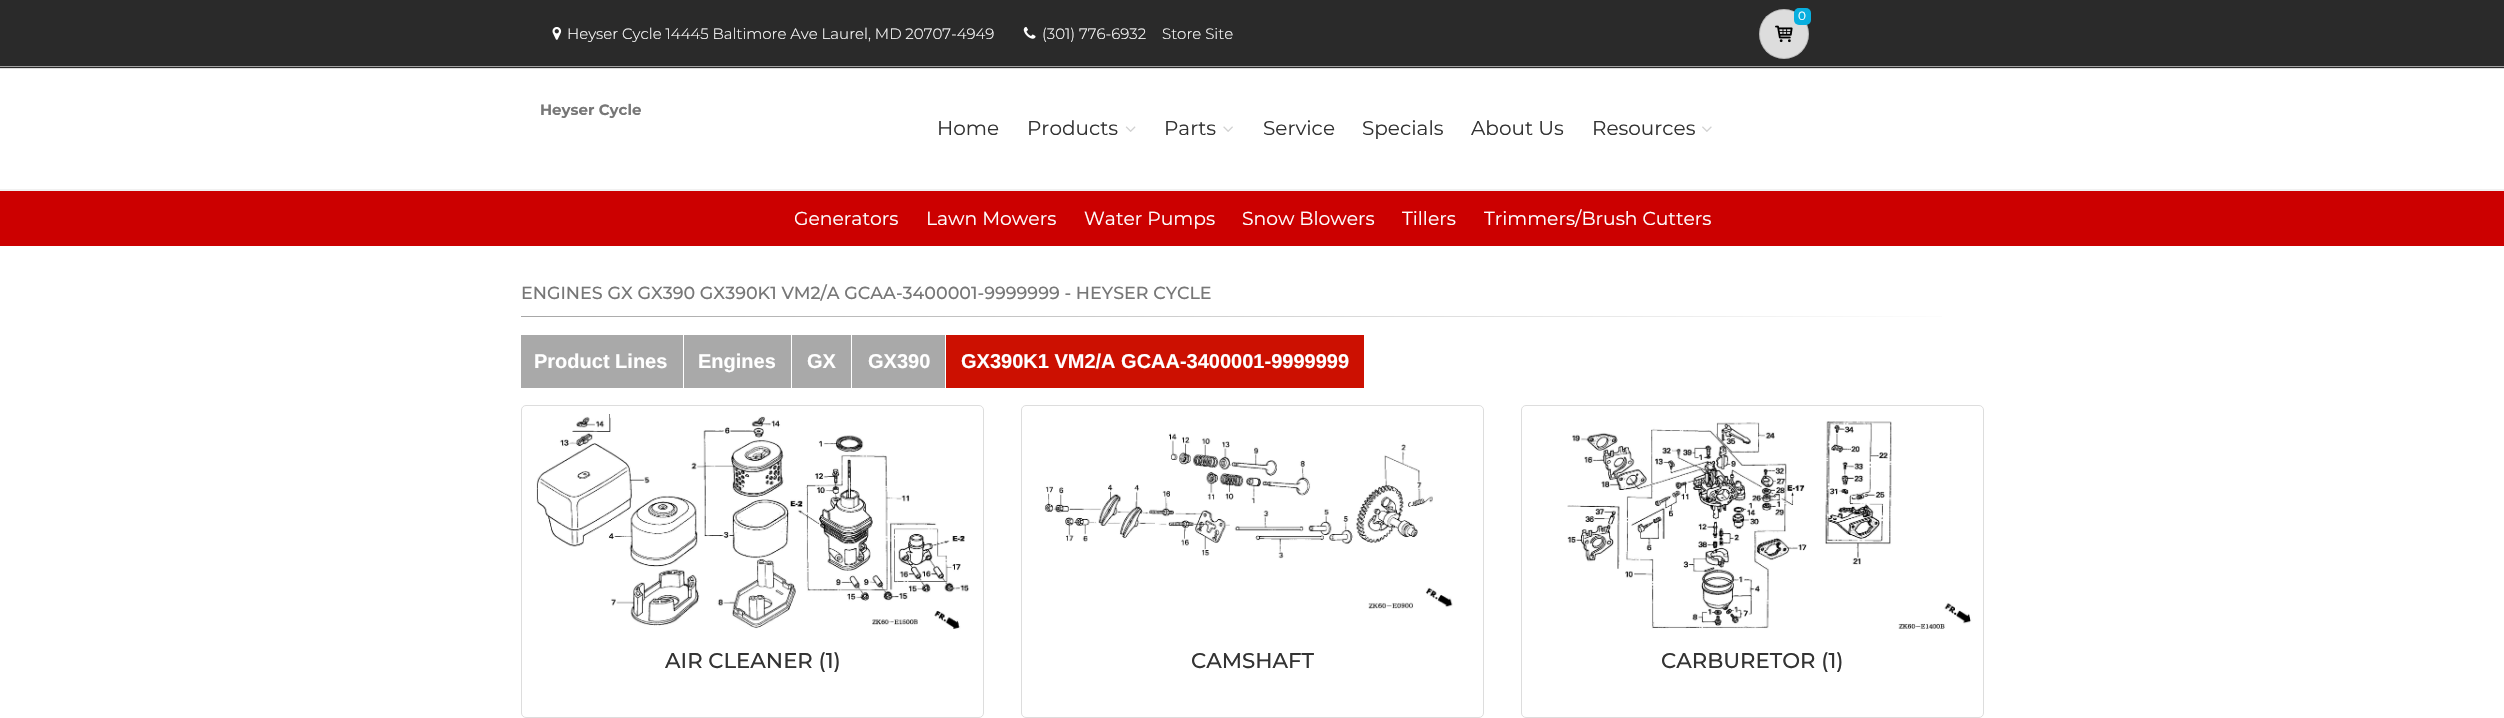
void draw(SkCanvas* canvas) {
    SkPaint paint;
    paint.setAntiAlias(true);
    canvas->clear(0xFFFFFFFF);
    paint.setColor(0xFF2A2A2A);
    canvas->drawRect(SkRect::MakeXYWH(0, 0, 2504, 68), paint);
    paint.setColor(0xFFA1A1A1);
    canvas->drawRect(SkRect::MakeXYWH(0, 66, 2504, 1), paint);
    paint.setColor(0xFFDDDDDD);
    canvas->drawCircle(1784, 34, 25, paint);
    paint.setStyle(SkPaint::kStroke_Style);
    paint.setStrokeWidth(1);
    paint.setColor(0x26000000);
    canvas->drawCircle(1784, 34, 24.5f, paint);
    paint.setStyle(SkPaint::kFill_Style);
    paint.setColor(0xFF09AFDF);
    canvas->drawRoundRect(SkRect::MakeXYWH(1794, 8, 17, 17), 5, 5, paint);
    SkFont font1(fontMgr->matchFamilyStyle("Montserrat", SkFontStyle::Normal()), 12);
    font1.setSubpixel(true);
    paint.setColor(0xFFFFFFFF);
    canvas->drawString("0", 1798, 20, font1, paint);
    canvas->drawImageRect(SkImages::DeferredFromEncodedData(SkData::MakeFromFileName("img1.png")), SkRect::MakeXYWH(1775, 25, 18, 18), SkSamplingOptions());
    canvas->drawImageRect(SkImages::DeferredFromEncodedData(SkData::MakeFromFileName("img2.png")), SkRect::MakeXYWH(552, 27, 10, 13), SkSamplingOptions());
    SkFont font2(fontMgr->matchFamilyStyle("Montserrat", SkFontStyle(300, SkFontStyle::kNormal_Width, SkFontStyle::kUpright_Slant)), 15);
    font2.setSubpixel(true);
    canvas->drawString("Heyser Cycle 14445 Baltimore Ave Laurel, MD 20707-4949", 567, 39, font2, paint);
    canvas->drawImageRect(SkImages::DeferredFromEncodedData(SkData::MakeFromFileName("img3.png")), SkRect::MakeXYWH(1023, 27, 13, 12), SkSamplingOptions());
    canvas->drawString("(301) 776-6932", 1042, 39, font2, paint);
    canvas->drawString("Store Site", 1162, 39, font2, paint);
    paint.setColor(0xFFDDDDDD);
    canvas->drawRect(SkRect::MakeXYWH(0, 68, 2504, 1), paint);
    paint.setColor(0xFFF1F1F1);
    canvas->drawRect(SkRect::MakeXYWH(0, 189, 2504, 2), paint);
    SkFont font3(fontMgr->matchFamilyStyle("Montserrat", SkFontStyle::Bold()), 15);
    font3.setSubpixel(true);
    paint.setColor(0xFF777777);
    canvas->drawString("Heyser Cycle", 540, 115, font3, paint);
    SkFont font4(fontMgr->matchFamilyStyle("Montserrat", SkFontStyle::Normal()), 20);
    font4.setSubpixel(true);
    paint.setColor(0xFF333333);
    canvas->drawString("Home", 937, 135, font4, paint);
    canvas->drawString("Products", 1027, 135, font4, paint);
    canvas->drawImageRect(SkImages::DeferredFromEncodedData(SkData::MakeFromFileName("img4.png")), SkRect::MakeXYWH(1125, 126, 11, 6), SkSamplingOptions());
    canvas->drawString("Parts", 1164, 135, font4, paint);
    canvas->drawImageRect(SkImages::DeferredFromEncodedData(SkData::MakeFromFileName("img5.png")), SkRect::MakeXYWH(1223, 126, 10, 6), SkSamplingOptions());
    canvas->drawString("Service", 1263, 135, font4, paint);
    canvas->drawString("Specials", 1362, 135, font4, paint);
    canvas->drawString("About Us", 1471, 135, font4, paint);
    canvas->drawString("Resources", 1592, 135, font4, paint);
    canvas->drawImageRect(SkImages::DeferredFromEncodedData(SkData::MakeFromFileName("img6.png")), SkRect::MakeXYWH(1702, 126, 10, 6), SkSamplingOptions());
    paint.setColor(0xFFCC0000);
    canvas->drawRect(SkRect::MakeXYWH(0, 191, 2504, 55), paint);
    SkFont font5(fontMgr->matchFamilyStyle("Montserrat", SkFontStyle::Normal()), 18.75f);
    font5.setSubpixel(true);
    paint.setColor(0xFFFFFFFF);
    canvas->drawString("Generators", 794, 225, font5, paint);
    canvas->drawString("Lawn Mowers", 926, 225, font5, paint);
    canvas->drawString("Water Pumps", 1084, 225, font5, paint);
    canvas->drawString("Snow Blowers", 1242, 225, font5, paint);
    canvas->drawString("Tillers", 1402, 225, font5, paint);
    canvas->drawString("Trimmers/Brush Cutters", 1484, 225, font5, paint);
    SkFont font6(fontMgr->matchFamilyStyle("Montserrat", SkFontStyle(500, SkFontStyle::kNormal_Width, SkFontStyle::kUpright_Slant)), 17.5f);
    font6.setSubpixel(true);
    paint.setColor(0xFF777777);
    canvas->drawString("ENGINES GX GX390 GX390K1 VM2/A GCAA-3400001-9999999 - HEYSER CYCLE", 521, 299, font6, paint);
    {
        const SkColor colors[] = {0xFFA7A7A7, 0xFFFFFFFF};
        const float stops[] = {0, 1};
        const SkPoint ends[] = {{521, 317}, {1984, 317}};
        paint.setShader(SkGradientShader::MakeLinear(ends, colors, stops, 2, SkTileMode::kClamp));
        paint.setAlpha(255);
    }
    canvas->drawRect(SkRect::MakeXYWH(521, 316, 1421, 1), paint);
    paint.setShader(nullptr);
    paint.setColor(0xFFA9A9A9);
    canvas->drawRect(SkRect::MakeXYWH(521, 335, 162, 53), paint);
    SkFont font7(fontMgr->matchFamilyStyle("Liberation Sans", SkFontStyle::Bold()), 20);
    font7.setSubpixel(true);
    paint.setColor(0xFFFFFFFF);
    canvas->drawString("Product Lines", 534, 368, font7, paint);
    paint.setColor(0xFFA9A9A9);
    canvas->drawRect(SkRect::MakeXYWH(684, 335, 261, 53), paint);
    paint.setColor(0xFFFFFFFF);
    canvas->drawRect(SkRect::MakeXYWH(791, 335, 1, 53), paint);
    canvas->drawString("Engines", 698, 368, font7, paint);
    canvas->drawRect(SkRect::MakeXYWH(851, 335, 1, 53), paint);
    canvas->drawString("GX", 807, 368, font7, paint);
    canvas->drawString("GX390", 868, 368, font7, paint);
    paint.setColor(0xFFCC1001);
    canvas->drawRect(SkRect::MakeXYWH(946, 335, 418, 53), paint);
    paint.setColor(0xFFFFFFFF);
    canvas->drawString("GX390K1 VM2/A GCAA-3400001-9999999", 961, 368, font7, paint);
    paint.setStyle(SkPaint::kStroke_Style);
    paint.setColor(0xFFDDDDDD);
    canvas->drawRoundRect(SkRect::MakeXYWH(521.5f, 405.5f, 462, 312), 4.5f, 4.5f, paint);
    canvas->drawImageRect(SkImages::DeferredFromEncodedData(SkData::MakeFromFileName("img7.png")), SkRect::MakeXYWH(536, 414, 434, 215), SkSamplingOptions());
    SkFont font8(fontMgr->matchFamilyStyle("Montserrat", SkFontStyle(500, SkFontStyle::kNormal_Width, SkFontStyle::kUpright_Slant)), 21.25f);
    font8.setSubpixel(true);
    paint.setStyle(SkPaint::kFill_Style);
    paint.setColor(0xFF333333);
    canvas->drawString("AIR CLEANER (1)", 665, 668, font8, paint);
    paint.setStyle(SkPaint::kStroke_Style);
    paint.setColor(0xFFDDDDDD);
    canvas->drawRoundRect(SkRect::MakeXYWH(1021.5f, 405.5f, 462, 312), 4.5f, 4.5f, paint);
    canvas->drawImageRect(SkImages::DeferredFromEncodedData(SkData::MakeFromFileName("img8.png")), SkRect::MakeXYWH(1044, 433, 409, 176), SkSamplingOptions());
    paint.setStyle(SkPaint::kFill_Style);
    paint.setColor(0xFF333333);
    canvas->drawString("CAMSHAFT", 1191, 668, font8, paint);
    paint.setStyle(SkPaint::kStroke_Style);
    paint.setColor(0xFFDDDDDD);
    canvas->drawRoundRect(SkRect::MakeXYWH(1521.5f, 405.5f, 462, 312), 4.5f, 4.5f, paint);
    canvas->drawImageRect(SkImages::DeferredFromEncodedData(SkData::MakeFromFileName("img9.png")), SkRect::MakeXYWH(1567, 421, 405, 208), SkSamplingOptions());
    paint.setStyle(SkPaint::kFill_Style);
    paint.setColor(0xFF333333);
    canvas->drawString("CARBURETOR (1)", 1661, 668, font8, paint);
}
